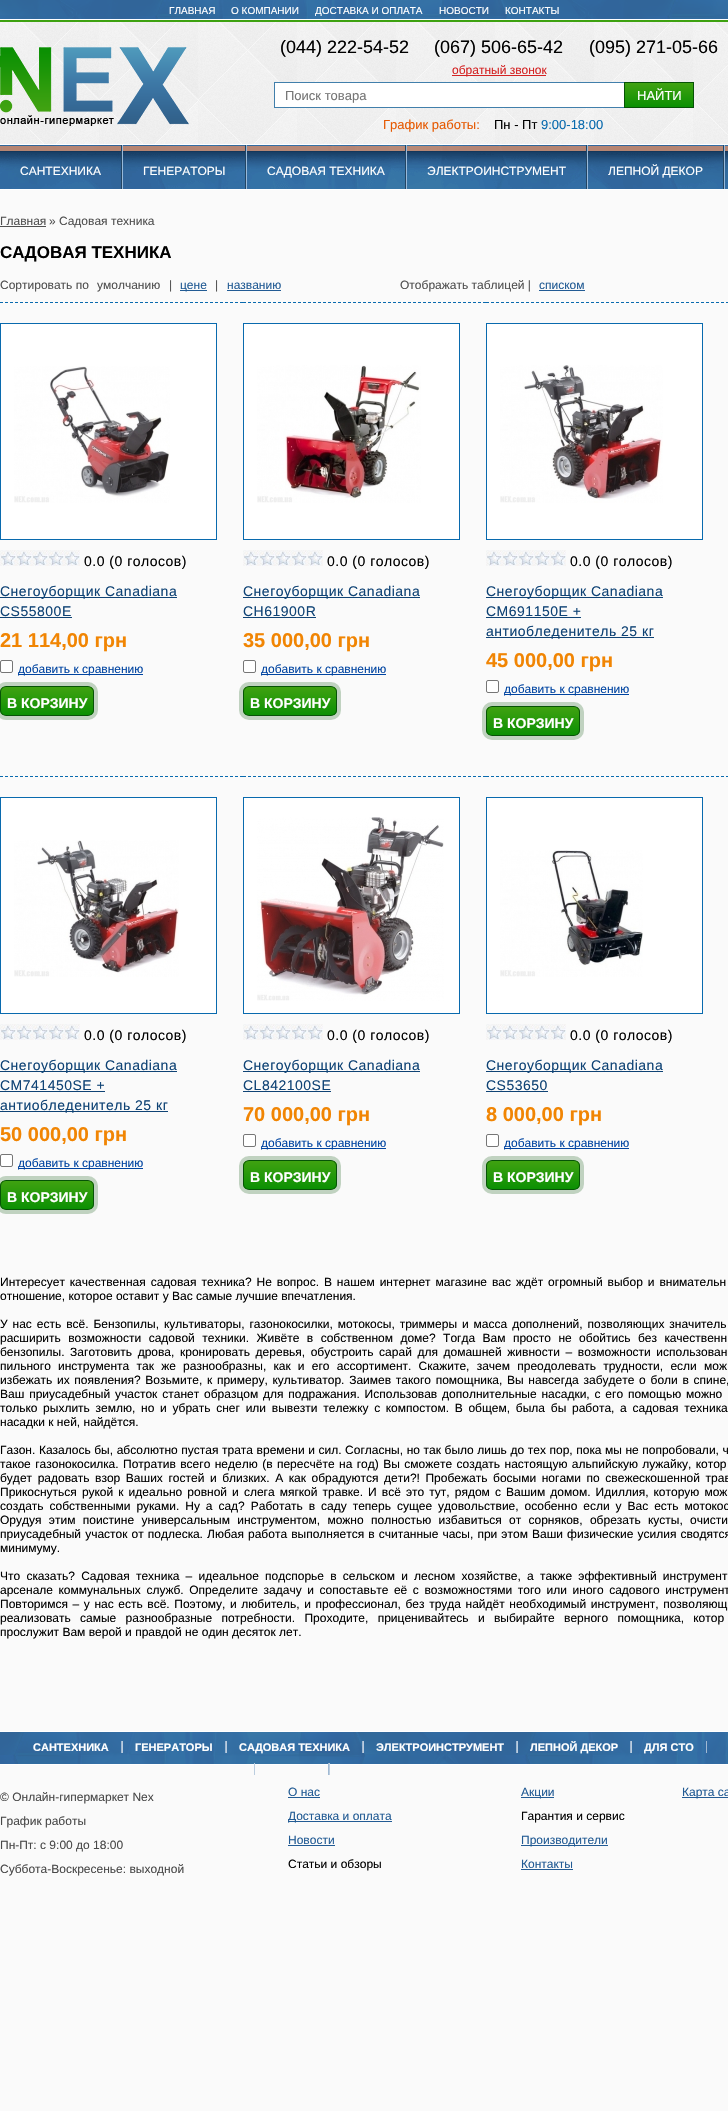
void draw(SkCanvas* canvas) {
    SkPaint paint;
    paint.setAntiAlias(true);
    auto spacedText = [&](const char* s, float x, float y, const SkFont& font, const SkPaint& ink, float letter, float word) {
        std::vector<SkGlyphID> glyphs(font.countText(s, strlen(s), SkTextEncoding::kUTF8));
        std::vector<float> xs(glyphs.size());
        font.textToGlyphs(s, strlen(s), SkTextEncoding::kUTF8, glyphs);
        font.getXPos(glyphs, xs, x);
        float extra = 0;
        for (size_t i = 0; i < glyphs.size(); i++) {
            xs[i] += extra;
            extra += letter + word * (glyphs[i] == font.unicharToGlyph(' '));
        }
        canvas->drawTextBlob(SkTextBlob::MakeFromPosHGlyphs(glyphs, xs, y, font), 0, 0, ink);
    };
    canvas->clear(0xFFFAFAFA);
    canvas->drawImageRect(SkImages::DeferredFromEncodedData(SkData::MakeFromFileName("img1.png")), SkRect::MakeXYWH(0, 22, 728, 122), SkSamplingOptions());
    canvas->drawImageRect(SkImages::DeferredFromEncodedData(SkData::MakeFromFileName("img2.png")), SkRect::MakeXYWH(0, 0, 728, 22), SkSamplingOptions());
    SkFont font1(fontMgr->matchFamilyStyle("Liberation Sans", SkFontStyle::Normal()), 10);
    font1.setSubpixel(true);
    paint.setColor(0xFFFFFFFF);
    canvas->drawString("ГЛАВНАЯ", 169, 14, font1, paint);
    canvas->drawString("О КОМПАНИИ", 231, 14, font1, paint);
    canvas->drawString("ДОСТАВКА И ОПЛАТА", 315, 14, font1, paint);
    canvas->drawString("НОВОСТИ", 439, 14, font1, paint);
    canvas->drawString("КОНТАКТЫ", 505, 14, font1, paint);
    canvas->drawImageRect(SkImages::DeferredFromEncodedData(SkData::MakeFromFileName("img3.png")), SkRect::MakeXYWH(0, 47, 189, 79), SkSamplingOptions());
    SkFont font2(fontMgr->matchFamilyStyle("Liberation Sans", SkFontStyle::Normal()), 18);
    font2.setSubpixel(true);
    paint.setColor(0xFF000000);
    canvas->drawString("(044) 222-54-52", 280, 53, font2, paint);
    canvas->drawString("(067) 506-65-42", 434, 53, font2, paint);
    canvas->drawString("(095) 271-05-66", 589, 53, font2, paint);
    paint.setColor(0xFFD42323);
    canvas->drawRect(SkRect::MakeXYWH(452, 75, 94, 1), paint);
    SkFont font3(fontMgr->matchFamilyStyle("Liberation Sans", SkFontStyle::Normal()), 12);
    font3.setSubpixel(true);
    canvas->drawString("обратный звонок", 452, 74, font3, paint);
    paint.setColor(0xFFFFFFFF);
    canvas->drawRect(SkRect::MakeXYWH(275, 83, 349, 24), paint);
    paint.setColor(0xFF417FAB);
    canvas->drawRect(SkRect::MakeXYWH(274, 82, 351, 1), paint);
    canvas->drawRect(SkRect::MakeXYWH(274, 107, 351, 1), paint);
    canvas->drawRect(SkRect::MakeXYWH(274, 82, 1, 26), paint);
    SkFont font4(fontMgr->matchFamilyStyle("Liberation Sans", SkFontStyle::Normal()), 13);
    font4.setSubpixel(true);
    paint.setColor(0xFF757575);
    canvas->drawString("Поиск товара", 285, 100, font4, paint);
    {
        const SkColor colors[] = {0xFF40A211, 0xFF0B9003};
        const float stops[] = {0, 1};
        const SkPoint ends[] = {{659, 83}, {659, 107}};
        paint.setShader(SkGradientShader::MakeLinear(ends, colors, stops, 2, SkTileMode::kClamp));
        paint.setAlpha(255);
    }
    canvas->drawRect(SkRect::MakeXYWH(625, 83, 68, 24), paint);
    paint.setStyle(SkPaint::kStroke_Style);
    paint.setStrokeWidth(1);
    paint.setShader(nullptr);
    paint.setColor(0xFF065306);
    canvas->drawRect(SkRect::MakeXYWH(624.5f, 82.5f, 69, 25), paint);
    paint.setStyle(SkPaint::kFill_Style);
    paint.setColor(0xFFFFFFFF);
    canvas->drawString("НАЙТИ", 637, 100, font4, paint);
    paint.setColor(0xFFE65901);
    canvas->drawString("График работы:", 383, 129, font4, paint);
    paint.setColor(0xFF000000);
    canvas->drawString("Пн - Пт", 494, 129, font4, paint);
    paint.setColor(0xFF096AAE);
    canvas->drawString("9:00-18:00", 541, 129, font4, paint);
    canvas->drawImageRect(SkImages::DeferredFromEncodedData(SkData::MakeFromFileName("img4.png")), SkRect::MakeXYWH(0, 144, 728, 46), SkSamplingOptions());
    paint.setColor(0xFF234563);
    canvas->drawRect(SkRect::MakeXYWH(121, 145, 1, 44), paint);
    paint.setColor(0xFFFFFFFF);
    canvas->drawString("САНТЕХНИКА", 20, 175, font3, paint);
    paint.setColor(0xFF234563);
    canvas->drawRect(SkRect::MakeXYWH(245, 145, 1, 44), paint);
    paint.setColor(0xFF98B9D9);
    canvas->drawRect(SkRect::MakeXYWH(122, 145, 1, 44), paint);
    paint.setColor(0xFFFFFFFF);
    canvas->drawString("ГЕНЕРАТОРЫ", 143, 175, font3, paint);
    paint.setColor(0xFF234563);
    canvas->drawRect(SkRect::MakeXYWH(405, 145, 1, 44), paint);
    paint.setColor(0xFF98B9D9);
    canvas->drawRect(SkRect::MakeXYWH(246, 145, 1, 44), paint);
    paint.setColor(0xFFFFFFFF);
    canvas->drawString("САДОВАЯ ТЕХНИКА", 267, 175, font3, paint);
    paint.setColor(0xFF234563);
    canvas->drawRect(SkRect::MakeXYWH(586, 145, 1, 44), paint);
    paint.setColor(0xFF98B9D9);
    canvas->drawRect(SkRect::MakeXYWH(406, 145, 1, 44), paint);
    paint.setColor(0xFFFFFFFF);
    canvas->drawString("ЭЛЕКТРОИНСТРУМЕНТ", 427, 175, font3, paint);
    paint.setColor(0xFF234563);
    canvas->drawRect(SkRect::MakeXYWH(723, 145, 1, 44), paint);
    paint.setColor(0xFF98B9D9);
    canvas->drawRect(SkRect::MakeXYWH(587, 145, 1, 44), paint);
    paint.setColor(0xFFFFFFFF);
    canvas->drawString("ЛЕПНОЙ ДЕКОР", 608, 175, font3, paint);
    paint.setColor(0xFF98B9D9);
    canvas->drawRect(SkRect::MakeXYWH(724, 145, 1, 44), paint);
    paint.setColor(0xFF505050);
    canvas->drawString("Главная", 0, 225, font3, paint);
    canvas->drawRect(SkRect::MakeXYWH(0, 226, 46, 1), paint);
    canvas->drawString("» Садовая техника", 49, 225, font3, paint);
    SkFont font5(fontMgr->matchFamilyStyle("Liberation Sans", SkFontStyle::Bold()), 17);
    font5.setSubpixel(true);
    paint.setColor(0xFF000000);
    canvas->drawString("САДОВАЯ ТЕХНИКА", 0, 258, font5, paint);
    paint.setColor(0xFF505050);
    canvas->drawString("Сортировать по", 0, 289, font3, paint);
    canvas->drawString("умолчанию", 97, 289, font3, paint);
    canvas->drawString("|", 169, 289, font3, paint);
    paint.setColor(0xFF225B94);
    canvas->drawRect(SkRect::MakeXYWH(180, 290, 27, 1), paint);
    canvas->drawString("цене", 180, 289, font3, paint);
    paint.setColor(0xFF505050);
    canvas->drawString("|", 215, 289, font3, paint);
    paint.setColor(0xFF225B94);
    canvas->drawString("названию", 227, 289, font3, paint);
    canvas->drawRect(SkRect::MakeXYWH(227, 290, 54, 1), paint);
    paint.setColor(0xFF505050);
    canvas->drawString("Отображать таблицей |", 400, 289, font3, paint);
    paint.setColor(0xFF225B94);
    canvas->drawString("списком", 539, 289, font3, paint);
    canvas->drawRect(SkRect::MakeXYWH(539, 290, 46, 1), paint);
    paint.setStyle(SkPaint::kStroke_Style);
    paint.setColor(0xFF096AAE);
    paint.setPathEffect(SkDashPathEffect::Make({{3, 2}}, 0));
    canvas->drawPath(SkPathBuilder().moveTo(0, 302.5f).lineTo(243, 302.5f).detach(), paint);
    paint.setPathEffect(nullptr);
    paint.setStyle(SkPaint::kFill_Style);
    paint.setColor(0xFFFFFFFF);
    canvas->drawRect(SkRect::MakeXYWH(0.5f, 323.5f, 216, 216), paint);
    paint.setStyle(SkPaint::kStroke_Style);
    paint.setColor(0xFF096AAE);
    canvas->drawRect(SkRect::MakeXYWH(0.5f, 323.5f, 216, 216), paint);
    canvas->drawImageRect(SkImages::DeferredFromEncodedData(SkData::MakeFromFileName("img5.png")), SkRect::MakeXYWH(14, 366, 156, 137), SkSamplingOptions());
    canvas->drawImageRect(SkImages::DeferredFromEncodedData(SkData::MakeFromFileName("img6.png")), SkRect::MakeXYWH(0, 550, 80, 16), SkSamplingOptions());
    SkFont font6(fontMgr->matchFamilyStyle("Liberation Sans", SkFontStyle::Normal()), 14);
    font6.setSubpixel(true);
    paint.setStyle(SkPaint::kFill_Style);
    paint.setColor(0xFF000000);
    spacedText("0.0 (0 голосов)", 84, 566, font6, paint, 0.5f, 0);
    paint.setColor(0xFF0F4375);
    canvas->drawRect(SkRect::MakeXYWH(0, 597, 177, 1), paint);
    spacedText("Снегоуборщик Canadiana", 0, 596, font6, paint, 0.5f, 0);
    spacedText("CS55800E", 0, 616, font6, paint, 0.5f, 0);
    canvas->drawRect(SkRect::MakeXYWH(0, 617, 72, 1), paint);
    SkFont font7(fontMgr->matchFamilyStyle("Liberation Sans", SkFontStyle::Bold()), 20);
    font7.setSubpixel(true);
    paint.setColor(0xFFF18503);
    canvas->drawString("21 114,00 грн", 0, 647, font7, paint);
    paint.setColor(0xFFFFFFFF);
    canvas->drawRoundRect(SkRect::MakeXYWH(0.5f, 660.5f, 12, 12), 1.5f, 1.5f, paint);
    paint.setStyle(SkPaint::kStroke_Style);
    paint.setColor(0xFF767676);
    canvas->drawRoundRect(SkRect::MakeXYWH(0.5f, 660.5f, 12, 12), 1.5f, 1.5f, paint);
    paint.setStyle(SkPaint::kFill_Style);
    paint.setColor(0xFF0044A1);
    canvas->drawRect(SkRect::MakeXYWH(18, 674, 125, 1), paint);
    canvas->drawString("добавить к сравнению", 18, 673, font3, paint);
    paint.setStyle(SkPaint::kStroke_Style);
    paint.setStrokeWidth(4);
    paint.setColor(0xFFC0D2C0);
    canvas->drawRoundRect(SkRect::MakeXYWH(-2, 684, 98, 34), 8, 8, paint);
    canvas->save();
    canvas->clipPath(SkPathBuilder().moveTo(6, 686).lineTo(88, 686).cubicTo(91.5f, 686, 94, 688.5f, 94, 692).lineTo(94, 710).cubicTo(94, 713.5f, 91.5f, 716, 88, 716).lineTo(6, 716).cubicTo(2.5f, 716, 0, 713.5f, 0, 710).lineTo(0, 692).cubicTo(0, 688.5f, 2.5f, 686, 6, 686).close().detach(), true);
    paint.setStyle(SkPaint::kFill_Style);
    {
        const SkColor colors[] = {0xFF40A211, 0xFF0B9003};
        const float stops[] = {0, 1};
        const SkPoint ends[] = {{47, 687}, {47, 715}};
        paint.setShader(SkGradientShader::MakeLinear(ends, colors, stops, 2, SkTileMode::kClamp));
        paint.setAlpha(255);
    }
    canvas->drawRect(SkRect::MakeXYWH(0, 687, 94, 28), paint);
    canvas->restore();
    paint.setStyle(SkPaint::kStroke_Style);
    paint.setStrokeWidth(1);
    paint.setShader(nullptr);
    paint.setColor(0xFF065306);
    canvas->drawRoundRect(SkRect::MakeXYWH(0.5f, 686.5f, 93, 29), 5.5f, 5.5f, paint);
    SkFont font8(fontMgr->matchFamilyStyle("Liberation Sans", SkFontStyle::Bold()), 14);
    font8.setSubpixel(true);
    paint.setStyle(SkPaint::kFill_Style);
    paint.setColor(0xFFFFFFFF);
    canvas->drawString("В КОРЗИНУ", 7, 708, font8, paint);
    paint.setStyle(SkPaint::kStroke_Style);
    paint.setColor(0xFF096AAE);
    paint.setPathEffect(SkDashPathEffect::Make({{3, 2}}, 0));
    canvas->drawPath(SkPathBuilder().moveTo(243, 302.5f).lineTo(486, 302.5f).detach(), paint);
    paint.setPathEffect(nullptr);
    paint.setStyle(SkPaint::kFill_Style);
    paint.setColor(0xFFFFFFFF);
    canvas->drawRect(SkRect::MakeXYWH(243.5f, 323.5f, 216, 216), paint);
    paint.setStyle(SkPaint::kStroke_Style);
    paint.setColor(0xFF096AAE);
    canvas->drawRect(SkRect::MakeXYWH(243.5f, 323.5f, 216, 216), paint);
    canvas->drawImageRect(SkImages::DeferredFromEncodedData(SkData::MakeFromFileName("img7.png")), SkRect::MakeXYWH(257, 365, 164, 138), SkSamplingOptions());
    canvas->drawImageRect(SkImages::DeferredFromEncodedData(SkData::MakeFromFileName("img6.png")), SkRect::MakeXYWH(243, 550, 80, 16), SkSamplingOptions());
    paint.setStyle(SkPaint::kFill_Style);
    paint.setColor(0xFF000000);
    spacedText("0.0 (0 голосов)", 327, 566, font6, paint, 0.5f, 0);
    paint.setColor(0xFF0F4375);
    canvas->drawRect(SkRect::MakeXYWH(243, 597, 177, 1), paint);
    spacedText("Снегоуборщик Canadiana", 243, 596, font6, paint, 0.5f, 0);
    spacedText("CH61900R", 243, 616, font6, paint, 0.5f, 0);
    canvas->drawRect(SkRect::MakeXYWH(243, 617, 73, 1), paint);
    paint.setColor(0xFFF18503);
    canvas->drawString("35 000,00 грн", 243, 647, font7, paint);
    paint.setColor(0xFFFFFFFF);
    canvas->drawRoundRect(SkRect::MakeXYWH(243.5f, 660.5f, 12, 12), 1.5f, 1.5f, paint);
    paint.setStyle(SkPaint::kStroke_Style);
    paint.setColor(0xFF767676);
    canvas->drawRoundRect(SkRect::MakeXYWH(243.5f, 660.5f, 12, 12), 1.5f, 1.5f, paint);
    paint.setStyle(SkPaint::kFill_Style);
    paint.setColor(0xFF0044A1);
    canvas->drawRect(SkRect::MakeXYWH(261, 674, 125, 1), paint);
    canvas->drawString("добавить к сравнению", 261, 673, font3, paint);
    paint.setStyle(SkPaint::kStroke_Style);
    paint.setStrokeWidth(4);
    paint.setColor(0xFFC0D2C0);
    canvas->drawRoundRect(SkRect::MakeXYWH(241, 684, 98, 34), 8, 8, paint);
    canvas->save();
    canvas->clipPath(SkPathBuilder().moveTo(249, 686).lineTo(331, 686).cubicTo(334.5f, 686, 337, 688.5f, 337, 692).lineTo(337, 710).cubicTo(337, 713.5f, 334.5f, 716, 331, 716).lineTo(249, 716).cubicTo(245.5f, 716, 243, 713.5f, 243, 710).lineTo(243, 692).cubicTo(243, 688.5f, 245.5f, 686, 249, 686).close().detach(), true);
    paint.setStyle(SkPaint::kFill_Style);
    {
        const SkColor colors[] = {0xFF40A211, 0xFF0B9003};
        const float stops[] = {0, 1};
        const SkPoint ends[] = {{290, 687}, {290, 715}};
        paint.setShader(SkGradientShader::MakeLinear(ends, colors, stops, 2, SkTileMode::kClamp));
        paint.setAlpha(255);
    }
    canvas->drawRect(SkRect::MakeXYWH(243, 687, 94, 28), paint);
    canvas->restore();
    paint.setStyle(SkPaint::kStroke_Style);
    paint.setStrokeWidth(1);
    paint.setShader(nullptr);
    paint.setColor(0xFF065306);
    canvas->drawRoundRect(SkRect::MakeXYWH(243.5f, 686.5f, 93, 29), 5.5f, 5.5f, paint);
    paint.setStyle(SkPaint::kFill_Style);
    paint.setColor(0xFFFFFFFF);
    canvas->drawString("В КОРЗИНУ", 250, 708, font8, paint);
    paint.setStyle(SkPaint::kStroke_Style);
    paint.setColor(0xFF096AAE);
    paint.setPathEffect(SkDashPathEffect::Make({{3, 2}}, 0));
    canvas->drawPath(SkPathBuilder().moveTo(486, 302.5f).lineTo(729, 302.5f).detach(), paint);
    paint.setPathEffect(nullptr);
    paint.setStyle(SkPaint::kFill_Style);
    paint.setColor(0xFFFFFFFF);
    canvas->drawRect(SkRect::MakeXYWH(486.5f, 323.5f, 216, 216), paint);
    paint.setStyle(SkPaint::kStroke_Style);
    paint.setColor(0xFF096AAE);
    canvas->drawRect(SkRect::MakeXYWH(486.5f, 323.5f, 216, 216), paint);
    canvas->drawImageRect(SkImages::DeferredFromEncodedData(SkData::MakeFromFileName("img8.png")), SkRect::MakeXYWH(500, 365, 163, 138), SkSamplingOptions());
    canvas->drawImageRect(SkImages::DeferredFromEncodedData(SkData::MakeFromFileName("img6.png")), SkRect::MakeXYWH(486, 550, 80, 16), SkSamplingOptions());
    paint.setStyle(SkPaint::kFill_Style);
    paint.setColor(0xFF000000);
    spacedText("0.0 (0 голосов)", 570, 566, font6, paint, 0.5f, 0);
    paint.setColor(0xFF0F4375);
    canvas->drawRect(SkRect::MakeXYWH(486, 597, 177, 1), paint);
    spacedText("Снегоуборщик Canadiana", 486, 596, font6, paint, 0.5f, 0);
    spacedText("CM691150E +", 486, 616, font6, paint, 0.5f, 0);
    canvas->drawRect(SkRect::MakeXYWH(486, 617, 95, 1), paint);
    canvas->drawRect(SkRect::MakeXYWH(486, 637, 168, 1), paint);
    spacedText("антиобледенитель 25 кг", 486, 636, font6, paint, 0.5f, 0);
    paint.setColor(0xFFF18503);
    canvas->drawString("45 000,00 грн", 486, 667, font7, paint);
    paint.setColor(0xFFFFFFFF);
    canvas->drawRoundRect(SkRect::MakeXYWH(486.5f, 680.5f, 12, 12), 1.5f, 1.5f, paint);
    paint.setStyle(SkPaint::kStroke_Style);
    paint.setColor(0xFF767676);
    canvas->drawRoundRect(SkRect::MakeXYWH(486.5f, 680.5f, 12, 12), 1.5f, 1.5f, paint);
    paint.setStyle(SkPaint::kFill_Style);
    paint.setColor(0xFF0044A1);
    canvas->drawRect(SkRect::MakeXYWH(504, 694, 125, 1), paint);
    canvas->drawString("добавить к сравнению", 504, 693, font3, paint);
    paint.setStyle(SkPaint::kStroke_Style);
    paint.setStrokeWidth(4);
    paint.setColor(0xFFC0D2C0);
    canvas->drawRoundRect(SkRect::MakeXYWH(484, 704, 98, 34), 8, 8, paint);
    canvas->save();
    canvas->clipPath(SkPathBuilder().moveTo(492, 706).lineTo(574, 706).cubicTo(577.5f, 706, 580, 708.5f, 580, 712).lineTo(580, 730).cubicTo(580, 733.5f, 577.5f, 736, 574, 736).lineTo(492, 736).cubicTo(488.5f, 736, 486, 733.5f, 486, 730).lineTo(486, 712).cubicTo(486, 708.5f, 488.5f, 706, 492, 706).close().detach(), true);
    paint.setStyle(SkPaint::kFill_Style);
    {
        const SkColor colors[] = {0xFF40A211, 0xFF0B9003};
        const float stops[] = {0, 1};
        const SkPoint ends[] = {{533, 707}, {533, 735}};
        paint.setShader(SkGradientShader::MakeLinear(ends, colors, stops, 2, SkTileMode::kClamp));
        paint.setAlpha(255);
    }
    canvas->drawRect(SkRect::MakeXYWH(486, 707, 94, 28), paint);
    canvas->restore();
    paint.setStyle(SkPaint::kStroke_Style);
    paint.setStrokeWidth(1);
    paint.setShader(nullptr);
    paint.setColor(0xFF065306);
    canvas->drawRoundRect(SkRect::MakeXYWH(486.5f, 706.5f, 93, 29), 5.5f, 5.5f, paint);
    paint.setStyle(SkPaint::kFill_Style);
    paint.setColor(0xFFFFFFFF);
    canvas->drawString("В КОРЗИНУ", 493, 728, font8, paint);
    paint.setStyle(SkPaint::kStroke_Style);
    paint.setColor(0xFF096AAE);
    paint.setPathEffect(SkDashPathEffect::Make({{3, 2}}, 0));
    canvas->drawPath(SkPathBuilder().moveTo(0, 776.5f).lineTo(243, 776.5f).detach(), paint);
    paint.setPathEffect(nullptr);
    paint.setStyle(SkPaint::kFill_Style);
    paint.setColor(0xFFFFFFFF);
    canvas->drawRect(SkRect::MakeXYWH(0.5f, 797.5f, 216, 216), paint);
    paint.setStyle(SkPaint::kStroke_Style);
    paint.setColor(0xFF096AAE);
    canvas->drawRect(SkRect::MakeXYWH(0.5f, 797.5f, 216, 216), paint);
    canvas->drawImageRect(SkImages::DeferredFromEncodedData(SkData::MakeFromFileName("img9.png")), SkRect::MakeXYWH(14, 840, 165, 137), SkSamplingOptions());
    canvas->drawImageRect(SkImages::DeferredFromEncodedData(SkData::MakeFromFileName("img6.png")), SkRect::MakeXYWH(0, 1024, 80, 16), SkSamplingOptions());
    paint.setStyle(SkPaint::kFill_Style);
    paint.setColor(0xFF000000);
    spacedText("0.0 (0 голосов)", 84, 1040, font6, paint, 0.5f, 0);
    paint.setColor(0xFF0F4375);
    canvas->drawRect(SkRect::MakeXYWH(0, 1071, 177, 1), paint);
    spacedText("Снегоуборщик Canadiana", 0, 1070, font6, paint, 0.5f, 0);
    spacedText("CM741450SE +", 0, 1090, font6, paint, 0.5f, 0);
    canvas->drawRect(SkRect::MakeXYWH(0, 1091, 105, 1), paint);
    canvas->drawRect(SkRect::MakeXYWH(0, 1111, 168, 1), paint);
    spacedText("антиобледенитель 25 кг", 0, 1110, font6, paint, 0.5f, 0);
    paint.setColor(0xFFF18503);
    canvas->drawString("50 000,00 грн", 0, 1141, font7, paint);
    paint.setColor(0xFFFFFFFF);
    canvas->drawRoundRect(SkRect::MakeXYWH(0.5f, 1154.5f, 12, 12), 1.5f, 1.5f, paint);
    paint.setStyle(SkPaint::kStroke_Style);
    paint.setColor(0xFF767676);
    canvas->drawRoundRect(SkRect::MakeXYWH(0.5f, 1154.5f, 12, 12), 1.5f, 1.5f, paint);
    paint.setStyle(SkPaint::kFill_Style);
    paint.setColor(0xFF0044A1);
    canvas->drawRect(SkRect::MakeXYWH(18, 1168, 125, 1), paint);
    canvas->drawString("добавить к сравнению", 18, 1167, font3, paint);
    paint.setStyle(SkPaint::kStroke_Style);
    paint.setStrokeWidth(4);
    paint.setColor(0xFFC0D2C0);
    canvas->drawRoundRect(SkRect::MakeXYWH(-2, 1178, 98, 34), 8, 8, paint);
    canvas->save();
    canvas->clipPath(SkPathBuilder().moveTo(6, 1180).lineTo(88, 1180).cubicTo(91.5f, 1180, 94, 1182.5f, 94, 1186).lineTo(94, 1204).cubicTo(94, 1207.5f, 91.5f, 1210, 88, 1210).lineTo(6, 1210).cubicTo(2.5f, 1210, 0, 1207.5f, 0, 1204).lineTo(0, 1186).cubicTo(0, 1182.5f, 2.5f, 1180, 6, 1180).close().detach(), true);
    paint.setStyle(SkPaint::kFill_Style);
    {
        const SkColor colors[] = {0xFF40A211, 0xFF0B9003};
        const float stops[] = {0, 1};
        const SkPoint ends[] = {{47, 1181}, {47, 1209}};
        paint.setShader(SkGradientShader::MakeLinear(ends, colors, stops, 2, SkTileMode::kClamp));
        paint.setAlpha(255);
    }
    canvas->drawRect(SkRect::MakeXYWH(0, 1181, 94, 28), paint);
    canvas->restore();
    paint.setStyle(SkPaint::kStroke_Style);
    paint.setStrokeWidth(1);
    paint.setShader(nullptr);
    paint.setColor(0xFF065306);
    canvas->drawRoundRect(SkRect::MakeXYWH(0.5f, 1180.5f, 93, 29), 5.5f, 5.5f, paint);
    paint.setStyle(SkPaint::kFill_Style);
    paint.setColor(0xFFFFFFFF);
    canvas->drawString("В КОРЗИНУ", 7, 1202, font8, paint);
    paint.setStyle(SkPaint::kStroke_Style);
    paint.setColor(0xFF096AAE);
    paint.setPathEffect(SkDashPathEffect::Make({{3, 2}}, 0));
    canvas->drawPath(SkPathBuilder().moveTo(243, 776.5f).lineTo(486, 776.5f).detach(), paint);
    paint.setPathEffect(nullptr);
    paint.setStyle(SkPaint::kFill_Style);
    paint.setColor(0xFFFFFFFF);
    canvas->drawRect(SkRect::MakeXYWH(243.5f, 797.5f, 216, 216), paint);
    paint.setStyle(SkPaint::kStroke_Style);
    paint.setColor(0xFF096AAE);
    canvas->drawRect(SkRect::MakeXYWH(243.5f, 797.5f, 216, 216), paint);
    canvas->drawImageRect(SkImages::DeferredFromEncodedData(SkData::MakeFromFileName("img10.png")), SkRect::MakeXYWH(257, 817, 187, 184), SkSamplingOptions());
    canvas->drawImageRect(SkImages::DeferredFromEncodedData(SkData::MakeFromFileName("img6.png")), SkRect::MakeXYWH(243, 1024, 80, 16), SkSamplingOptions());
    paint.setStyle(SkPaint::kFill_Style);
    paint.setColor(0xFF000000);
    spacedText("0.0 (0 голосов)", 327, 1040, font6, paint, 0.5f, 0);
    paint.setColor(0xFF0F4375);
    canvas->drawRect(SkRect::MakeXYWH(243, 1071, 177, 1), paint);
    spacedText("Снегоуборщик Canadiana", 243, 1070, font6, paint, 0.5f, 0);
    spacedText("CL842100SE", 243, 1090, font6, paint, 0.5f, 0);
    canvas->drawRect(SkRect::MakeXYWH(243, 1091, 88, 1), paint);
    paint.setColor(0xFFF18503);
    canvas->drawString("70 000,00 грн", 243, 1121, font7, paint);
    paint.setColor(0xFFFFFFFF);
    canvas->drawRoundRect(SkRect::MakeXYWH(243.5f, 1134.5f, 12, 12), 1.5f, 1.5f, paint);
    paint.setStyle(SkPaint::kStroke_Style);
    paint.setColor(0xFF767676);
    canvas->drawRoundRect(SkRect::MakeXYWH(243.5f, 1134.5f, 12, 12), 1.5f, 1.5f, paint);
    paint.setStyle(SkPaint::kFill_Style);
    paint.setColor(0xFF0044A1);
    canvas->drawRect(SkRect::MakeXYWH(261, 1148, 125, 1), paint);
    canvas->drawString("добавить к сравнению", 261, 1147, font3, paint);
    paint.setStyle(SkPaint::kStroke_Style);
    paint.setStrokeWidth(4);
    paint.setColor(0xFFC0D2C0);
    canvas->drawRoundRect(SkRect::MakeXYWH(241, 1158, 98, 34), 8, 8, paint);
    canvas->save();
    canvas->clipPath(SkPathBuilder().moveTo(249, 1160).lineTo(331, 1160).cubicTo(334.5f, 1160, 337, 1162.5f, 337, 1166).lineTo(337, 1184).cubicTo(337, 1187.5f, 334.5f, 1190, 331, 1190).lineTo(249, 1190).cubicTo(245.5f, 1190, 243, 1187.5f, 243, 1184).lineTo(243, 1166).cubicTo(243, 1162.5f, 245.5f, 1160, 249, 1160).close().detach(), true);
    paint.setStyle(SkPaint::kFill_Style);
    {
        const SkColor colors[] = {0xFF40A211, 0xFF0B9003};
        const float stops[] = {0, 1};
        const SkPoint ends[] = {{290, 1161}, {290, 1189}};
        paint.setShader(SkGradientShader::MakeLinear(ends, colors, stops, 2, SkTileMode::kClamp));
        paint.setAlpha(255);
    }
    canvas->drawRect(SkRect::MakeXYWH(243, 1161, 94, 28), paint);
    canvas->restore();
    paint.setStyle(SkPaint::kStroke_Style);
    paint.setStrokeWidth(1);
    paint.setShader(nullptr);
    paint.setColor(0xFF065306);
    canvas->drawRoundRect(SkRect::MakeXYWH(243.5f, 1160.5f, 93, 29), 5.5f, 5.5f, paint);
    paint.setStyle(SkPaint::kFill_Style);
    paint.setColor(0xFFFFFFFF);
    canvas->drawString("В КОРЗИНУ", 250, 1182, font8, paint);
    paint.setStyle(SkPaint::kStroke_Style);
    paint.setColor(0xFF096AAE);
    paint.setPathEffect(SkDashPathEffect::Make({{3, 2}}, 0));
    canvas->drawPath(SkPathBuilder().moveTo(486, 776.5f).lineTo(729, 776.5f).detach(), paint);
    paint.setPathEffect(nullptr);
    paint.setStyle(SkPaint::kFill_Style);
    paint.setColor(0xFFFFFFFF);
    canvas->drawRect(SkRect::MakeXYWH(486.5f, 797.5f, 216, 216), paint);
    paint.setStyle(SkPaint::kStroke_Style);
    paint.setColor(0xFF096AAE);
    canvas->drawRect(SkRect::MakeXYWH(486.5f, 797.5f, 216, 216), paint);
    canvas->drawImageRect(SkImages::DeferredFromEncodedData(SkData::MakeFromFileName("img11.png")), SkRect::MakeXYWH(500, 850, 143, 127), SkSamplingOptions());
    canvas->drawImageRect(SkImages::DeferredFromEncodedData(SkData::MakeFromFileName("img6.png")), SkRect::MakeXYWH(486, 1024, 80, 16), SkSamplingOptions());
    paint.setStyle(SkPaint::kFill_Style);
    paint.setColor(0xFF000000);
    spacedText("0.0 (0 голосов)", 570, 1040, font6, paint, 0.5f, 0);
    paint.setColor(0xFF0F4375);
    canvas->drawRect(SkRect::MakeXYWH(486, 1071, 177, 1), paint);
    spacedText("Снегоуборщик Canadiana", 486, 1070, font6, paint, 0.5f, 0);
    spacedText("CS53650", 486, 1090, font6, paint, 0.5f, 0);
    canvas->drawRect(SkRect::MakeXYWH(486, 1091, 62, 1), paint);
    paint.setColor(0xFFF18503);
    canvas->drawString("8 000,00 грн", 486, 1121, font7, paint);
    paint.setColor(0xFFFFFFFF);
    canvas->drawRoundRect(SkRect::MakeXYWH(486.5f, 1134.5f, 12, 12), 1.5f, 1.5f, paint);
    paint.setStyle(SkPaint::kStroke_Style);
    paint.setColor(0xFF767676);
    canvas->drawRoundRect(SkRect::MakeXYWH(486.5f, 1134.5f, 12, 12), 1.5f, 1.5f, paint);
    paint.setStyle(SkPaint::kFill_Style);
    paint.setColor(0xFF0044A1);
    canvas->drawRect(SkRect::MakeXYWH(504, 1148, 125, 1), paint);
    canvas->drawString("добавить к сравнению", 504, 1147, font3, paint);
    paint.setStyle(SkPaint::kStroke_Style);
    paint.setStrokeWidth(4);
    paint.setColor(0xFFC0D2C0);
    canvas->drawRoundRect(SkRect::MakeXYWH(484, 1158, 98, 34), 8, 8, paint);
    canvas->save();
    canvas->clipPath(SkPathBuilder().moveTo(492, 1160).lineTo(574, 1160).cubicTo(577.5f, 1160, 580, 1162.5f, 580, 1166).lineTo(580, 1184).cubicTo(580, 1187.5f, 577.5f, 1190, 574, 1190).lineTo(492, 1190).cubicTo(488.5f, 1190, 486, 1187.5f, 486, 1184).lineTo(486, 1166).cubicTo(486, 1162.5f, 488.5f, 1160, 492, 1160).close().detach(), true);
    paint.setStyle(SkPaint::kFill_Style);
    {
        const SkColor colors[] = {0xFF40A211, 0xFF0B9003};
        const float stops[] = {0, 1};
        const SkPoint ends[] = {{533, 1161}, {533, 1189}};
        paint.setShader(SkGradientShader::MakeLinear(ends, colors, stops, 2, SkTileMode::kClamp));
        paint.setAlpha(255);
    }
    canvas->drawRect(SkRect::MakeXYWH(486, 1161, 94, 28), paint);
    canvas->restore();
    paint.setStyle(SkPaint::kStroke_Style);
    paint.setStrokeWidth(1);
    paint.setShader(nullptr);
    paint.setColor(0xFF065306);
    canvas->drawRoundRect(SkRect::MakeXYWH(486.5f, 1160.5f, 93, 29), 5.5f, 5.5f, paint);
    paint.setStyle(SkPaint::kFill_Style);
    paint.setColor(0xFFFFFFFF);
    canvas->drawString("В КОРЗИНУ", 493, 1182, font8, paint);
    paint.setColor(0xFF000000);
    spacedText("Интересует качественная садовая техника? Не вопрос. В нашем интернет магазине вас ждёт огромный выбор и внимательн", 0, 1286, font3, paint, 0, 1.6f);
    canvas->drawString("отношение, которое оставит у Вас самые лучшие впечатления.", 0, 1300, font3, paint);
    spacedText("У нас есть всё. Бензопилы, культиваторы, газонокосилки, мотокосы, триммеры и масса дополнений, позволяющих значитель", 0, 1328, font3, paint, 0, 1.6f);
    spacedText("расширить возможности садовой техники. Живёте в собственном доме? Тогда Вам просто не обойтись без качественн", 0, 1342, font3, paint, 0, 4.1f);
    spacedText("бензопилы. Заготовить дрова, кронировать деревья, обустроить сарай для домашней живности – возможности использован", 0, 1356, font3, paint, 0, 2.25f);
    spacedText("пильного инструмента так же разнообразны, как и его ассортимент. Скажите, зачем преодолевать трудности, если мож", 0, 1370, font3, paint, 0, 3.9f);
    spacedText("избежать их появления? Возьмите, к примеру, культиватор. Заимев такого помощника, Вы навсегда забудете о боли в спине,", 0, 1384, font3, paint, 0, 1.4f);
    spacedText("Ваш приусадебный участок станет образцом для подражания. Использовав дополнительные насадки, с его помощью можно", 0, 1398, font3, paint, 0, 1.5f);
    spacedText("только рыхлить землю, но и убрать снег или вывезти тележку с компостом. В общем, была бы работа, а садовая техника", 0, 1412, font3, paint, 0, 2.4f);
    canvas->drawString("насадки к ней, найдётся.", 0, 1426, font3, paint);
    spacedText("Газон. Казалось бы, абсолютно пустая трата времени и сил. Согласны, но так было лишь до тех пор, пока мы не попробовали, ч", 0, 1454, font3, paint, 0, 0.25f);
    spacedText("такое газонокосилка. Потратив всего неделю (в пересчёте на год) Вы сможете создать настоящую альпийскую лужайку, котор", 0, 1468, font3, paint, 0, 1.1f);
    spacedText("будет радовать взор Ваших гостей и близких. А как обрадуются дети?! Пробежать босыми ногами по свежескошенной трав", 0, 1482, font3, paint, 0, 2.25f);
    spacedText("Прикоснуться рукой к идеально ровной и слега мягкой травке. И всё это тут, рядом с Вашим домом. Идиллия, которую мож", 0, 1496, font3, paint, 0, 1.75f);
    spacedText("создать собственными руками. Ну а сад? Работать в саду теперь сущее удовольствие, особенно если у Вас есть мотокос", 0, 1510, font3, paint, 0, 2.6f);
    spacedText("Орудуя этим поистине универсальным инструментом, можно полностью избавиться от сорняков, обрезать кусты, очисти", 0, 1524, font3, paint, 0, 4);
    spacedText("приусадебный участок от подлеска. Любая работа выполняется в считанные часы, при этом Ваши физические усилия сводятся", 0, 1538, font3, paint, 0, 0.75f);
    canvas->drawString("минимуму.", 0, 1552, font3, paint);
    spacedText("Что сказать? Садовая техника – идеальное подспорье в сельском и лесном хозяйстве, а также эффективный инструмент", 0, 1580, font3, paint, 0, 2.9f);
    spacedText("арсенале коммунальных служб. Определите задачу и сопоставьте её с возможностями того или иного садового инструмент", 0, 1594, font3, paint, 0, 2.25f);
    spacedText("Повторимся – у нас есть всё. Поэтому, и любитель, и профессионал, без труда найдёт необходимый инструмент, позволяющ", 0, 1608, font3, paint, 0, 1.25f);
    spacedText("реализовать самые разнообразные потребности. Проходите, приценивайтесь и выбирайте верного помощника, котор", 0, 1622, font3, paint, 0, 6);
    canvas->drawString("прослужит Вам верой и правдой не один десяток лет.", 0, 1636, font3, paint);
    canvas->drawImageRect(SkImages::DeferredFromEncodedData(SkData::MakeFromFileName("img12.png")), SkRect::MakeXYWH(0, 1731, 728, 34), SkSamplingOptions());
    paint.setColor(0xFFA0B9D3);
    canvas->drawRect(SkRect::MakeXYWH(121, 1741, 1, 12), paint);
    SkFont font9(fontMgr->matchFamilyStyle("Liberation Sans", SkFontStyle::Bold()), 11);
    font9.setSubpixel(true);
    paint.setColor(0xFFFFFFFF);
    canvas->drawString("САНТЕХНИКА", 33, 1751, font9, paint);
    paint.setColor(0xFFA0B9D3);
    canvas->drawRect(SkRect::MakeXYWH(225, 1741, 1, 12), paint);
    paint.setColor(0xFFBBCDDF);
    canvas->drawRect(SkRect::MakeXYWH(122, 1741, 1, 12), paint);
    paint.setColor(0xFFFFFFFF);
    canvas->drawString("ГЕНЕРАТОРЫ", 135, 1751, font9, paint);
    paint.setColor(0xFFA0B9D3);
    canvas->drawRect(SkRect::MakeXYWH(362, 1741, 1, 12), paint);
    paint.setColor(0xFFBBCDDF);
    canvas->drawRect(SkRect::MakeXYWH(226, 1741, 1, 12), paint);
    paint.setColor(0xFFFFFFFF);
    canvas->drawString("САДОВАЯ ТЕХНИКА", 239, 1751, font9, paint);
    paint.setColor(0xFFA0B9D3);
    canvas->drawRect(SkRect::MakeXYWH(516, 1741, 1, 12), paint);
    paint.setColor(0xFFBBCDDF);
    canvas->drawRect(SkRect::MakeXYWH(363, 1741, 1, 12), paint);
    paint.setColor(0xFFFFFFFF);
    canvas->drawString("ЭЛЕКТРОИНСТРУМЕНТ", 376, 1751, font9, paint);
    paint.setColor(0xFFA0B9D3);
    canvas->drawRect(SkRect::MakeXYWH(630, 1741, 1, 12), paint);
    paint.setColor(0xFFBBCDDF);
    canvas->drawRect(SkRect::MakeXYWH(517, 1741, 1, 12), paint);
    paint.setColor(0xFFFFFFFF);
    canvas->drawString("ЛЕПНОЙ ДЕКОР", 530, 1751, font9, paint);
    paint.setColor(0xFFA0B9D3);
    canvas->drawRect(SkRect::MakeXYWH(706, 1741, 1, 12), paint);
    paint.setColor(0xFFBBCDDF);
    canvas->drawRect(SkRect::MakeXYWH(631, 1741, 1, 12), paint);
    paint.setColor(0xFFFFFFFF);
    canvas->drawString("ДЛЯ СТО", 644, 1751, font9, paint);
    paint.setColor(0xFFA0B9D3);
    canvas->drawRect(SkRect::MakeXYWH(328, 1763, 1, 12), paint);
    paint.setColor(0xFFBBCDDF);
    canvas->drawRect(SkRect::MakeXYWH(254, 1763, 1, 12), paint);
    canvas->drawRect(SkRect::MakeXYWH(329, 1763, 1, 12), paint);
    paint.setColor(0xFF494949);
    canvas->drawString("© Онлайн-гипермаркет Nex", 0, 1801, font3, paint);
    canvas->drawString("График работы", 0, 1825, font3, paint);
    canvas->drawString("Пн-Пт: с 9:00 до 18:00", 0, 1849, font3, paint);
    canvas->drawString("Суббота-Воскресенье: выходной", 0, 1873, font3, paint);
    paint.setColor(0xFF225B94);
    canvas->drawString("О нас", 288, 1796, font3, paint);
    canvas->drawRect(SkRect::MakeXYWH(288, 1797, 32, 1), paint);
    canvas->drawRect(SkRect::MakeXYWH(521, 1797, 33, 1), paint);
    canvas->drawString("Акции", 521, 1796, font3, paint);
    canvas->drawRect(SkRect::MakeXYWH(288, 1821, 104, 1), paint);
    canvas->drawString("Доставка и оплата", 288, 1820, font3, paint);
    paint.setColor(0xFF000000);
    canvas->drawString("Гарантия и сервис", 521, 1820, font3, paint);
    paint.setColor(0xFF225B94);
    canvas->drawString("Новости", 288, 1844, font3, paint);
    canvas->drawRect(SkRect::MakeXYWH(288, 1845, 47, 1), paint);
    canvas->drawRect(SkRect::MakeXYWH(521, 1845, 87, 1), paint);
    canvas->drawString("Производители", 521, 1844, font3, paint);
    paint.setColor(0xFF000000);
    canvas->drawString("Статьи и обзоры", 288, 1868, font3, paint);
    paint.setColor(0xFF225B94);
    canvas->drawString("Контакты", 521, 1868, font3, paint);
    canvas->drawRect(SkRect::MakeXYWH(521, 1869, 52, 1), paint);
    canvas->drawRect(SkRect::MakeXYWH(682, 1797, 46, 1), paint);
    canvas->drawString("Карта са", 682, 1796, font3, paint);
}
